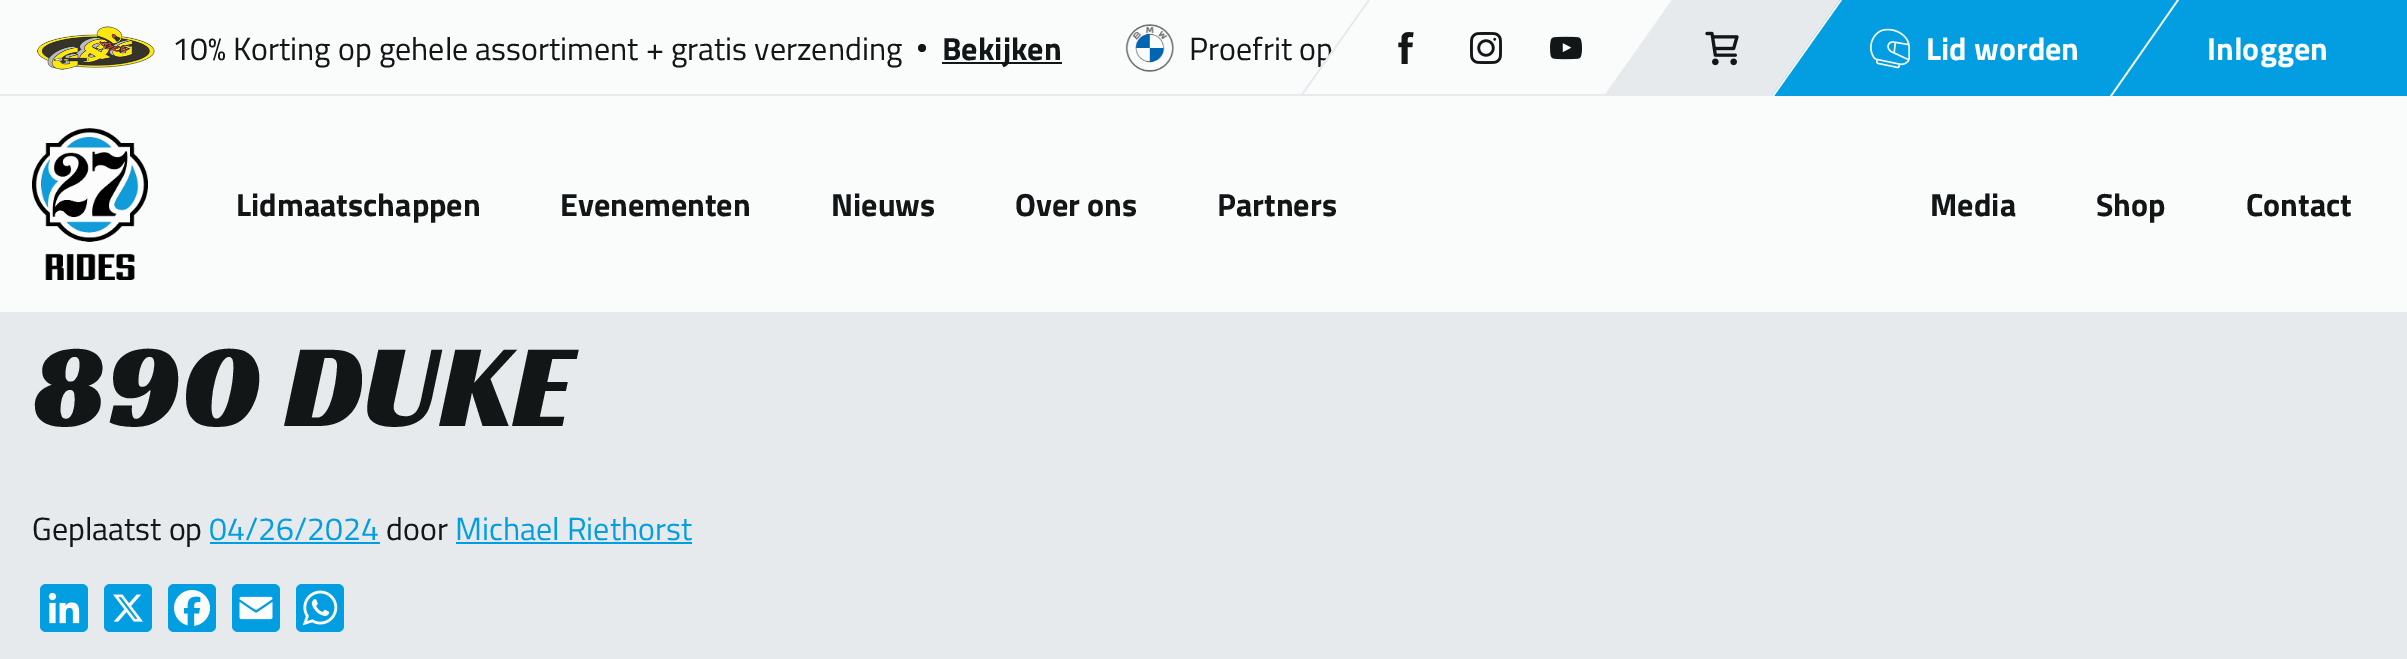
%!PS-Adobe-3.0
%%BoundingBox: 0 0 2407 659
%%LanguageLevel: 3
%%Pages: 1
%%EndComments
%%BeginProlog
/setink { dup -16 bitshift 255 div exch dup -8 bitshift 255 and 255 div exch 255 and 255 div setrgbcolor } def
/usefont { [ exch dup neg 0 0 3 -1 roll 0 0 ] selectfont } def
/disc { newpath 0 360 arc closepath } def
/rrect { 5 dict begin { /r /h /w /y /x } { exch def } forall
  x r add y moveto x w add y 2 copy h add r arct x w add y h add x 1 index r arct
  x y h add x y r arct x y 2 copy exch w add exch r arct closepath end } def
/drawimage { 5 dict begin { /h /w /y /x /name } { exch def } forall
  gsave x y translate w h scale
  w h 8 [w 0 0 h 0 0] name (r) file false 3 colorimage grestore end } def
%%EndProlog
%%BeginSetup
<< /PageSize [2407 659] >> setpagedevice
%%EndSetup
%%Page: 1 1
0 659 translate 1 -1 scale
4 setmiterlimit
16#E6EAEC setink
0 0 2407 659 rectfill
16#FAFBFB setink
0 0 2407 312 rectfill
(img1.raw) 37 26 118 44 drawimage
/TitilliumWeb-Regular 32 usefont
16#121617 setink
172 60 moveto (10% Korting op gehele assortiment + gratis verzending) show
922 48 4 disc fill
942 62 120 2 rectfill
/TitilliumWeb-Bold 32 usefont
942 60 moveto (Bekijken) show
(img2.raw) 1125 24 49 48 drawimage
/TitilliumWeb-Regular 32 usefont
1189 60 moveto (Proefrit op) show
16#FAFBFB setink
1368 0 moveto 1672 0 lineto 1604 96 lineto 1300 96 lineto closepath fill
16#E6EAEC setink
1368 0 moveto 1370 0 lineto 1302 96 lineto 1300 96 lineto closepath fill
(img3.raw) 1398 32 16 32 drawimage
(img4.raw) 1470 32 32 32 drawimage
(img5.raw) 1550 36 32 24 drawimage
0 94 1774 2 rectfill
1672 0 moveto 1840 0 lineto 1772 96 lineto 1604 96 lineto closepath fill
(img6.raw) 1705 31 34 35 drawimage
16#039EE1 setink
2110 0 297 96 rectfill
1840 0 moveto 2177 0 lineto 2110 96 lineto 1772 96 lineto closepath fill
16#FAFBFB setink
1840 0 moveto 1842 0 lineto 1774 96 lineto 1772 96 lineto closepath fill
(img7.raw) 1870 28 40 41 drawimage
/TitilliumWeb-Bold 32 usefont
1926 60 moveto (Lid worden) show
2177 0 moveto 2179 0 lineto 2112 96 lineto 2110 96 lineto closepath fill
2207 60 moveto (Inloggen) show
(img8.raw) 32 128 116 152 drawimage
16#121617 setink
[
    [(Lidmaatschappen) 236 216]
    [(Evenementen) 560 216]
    [(Nieuws) 831 216]
    [(Over ons) 1015 216]
    [(Partners) 1217 216]
    [(Media) 1930 216]
    [(Shop) 2096 216]
    [(Contact) 2246 216]
] { aload pop moveto show } forall
/RacingSansOne-Regular 120 usefont
32 426 moveto (890 DUKE) show
/TitilliumWeb-Regular 32 usefont
32 540 moveto (Geplaatst op) show
16#039EE1 setink
209 540 moveto (04/26/2024) show
210 542 170 2 rectfill
16#121617 setink
386 540 moveto (door) show
16#039EE1 setink
455 540 moveto (Michael Riethorst) show
456 542 236 2 rectfill
40 584 48 48 6 rrect fill
(img9.raw) 48 592 32 32 drawimage
104 584 48 48 6 rrect fill
(img10.raw) 113 594 30 28 drawimage
168 584 48 48 6 rrect fill
(img11.raw) 174 590 36 36 drawimage
232 584 48 48 6 rrect fill
(img12.raw) 239 596 34 24 drawimage
296 584 48 48 6 rrect fill
(img13.raw) 302 590 36 36 drawimage
showpage
%%EOF
